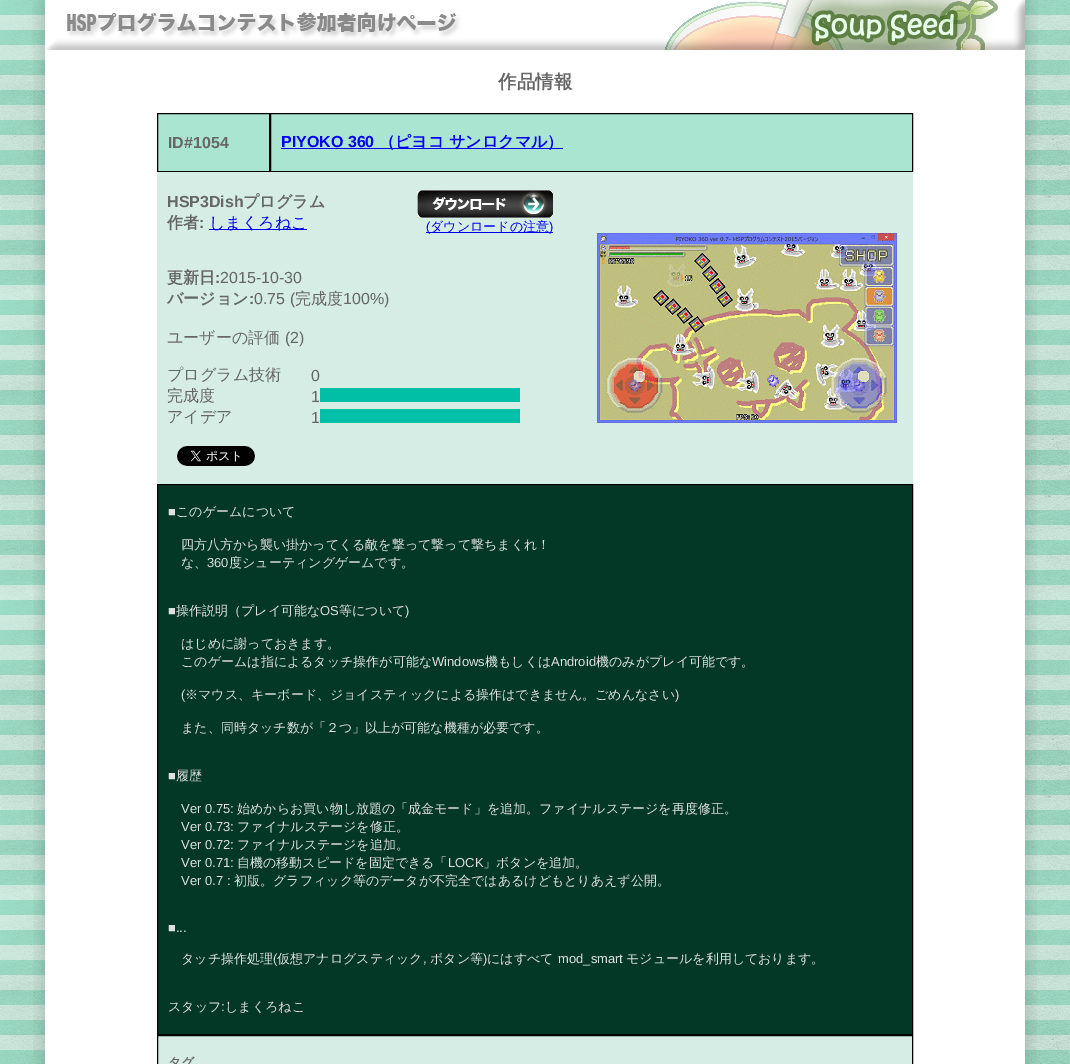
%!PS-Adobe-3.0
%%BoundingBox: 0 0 1070 1064
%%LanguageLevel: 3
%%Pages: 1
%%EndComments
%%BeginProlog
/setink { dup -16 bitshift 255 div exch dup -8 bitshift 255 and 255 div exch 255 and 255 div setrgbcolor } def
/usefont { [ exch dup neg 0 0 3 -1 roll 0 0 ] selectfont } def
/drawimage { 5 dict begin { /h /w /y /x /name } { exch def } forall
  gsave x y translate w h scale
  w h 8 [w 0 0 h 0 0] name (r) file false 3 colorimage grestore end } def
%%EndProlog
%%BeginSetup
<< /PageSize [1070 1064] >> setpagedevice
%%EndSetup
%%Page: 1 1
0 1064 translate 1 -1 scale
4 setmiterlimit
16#FFFFFF setink
0 0 1070 1064 rectfill
(img1.raw) 0 50 1070 1014 drawimage
(img2.raw) 0 0 1070 50 drawimage
(img3.raw) 32 0 1006 50 drawimage
(img4.raw) 33 50 1004 1014 drawimage
/WenQuanYiZenHei-Bold 18.5 usefont
16#666666 setink
498 88 moveto (作品情報) show
16#A9E5D0 setink
158 114 754 57 rectfill
16#000000 setink
157.5 113.5 112 58 rectstroke
/LiberationSans-Bold 16 usefont
16#666666 setink
168 148 moveto (ID#1054) show
16#000000 setink
270.5 113.5 642 58 rectstroke
16#0000EE setink
281 147 moveto (PIYOKO 360) show
281 148 282 1 rectfill
/WenQuanYiZenHei-Bold 16 usefont
379 147 moveto (（ピヨコ) show
449 147 moveto (サンロクマル）) show
16#D5EDE4 setink
157 172 756 312 rectfill
/LiberationSans-Bold 16 usefont
16#666666 setink
167 207 moveto (HSP3Dish) show
/WenQuanYiZenHei-Bold 16 usefont
243 207 moveto (プログラム) show
167 228 moveto (作者) show
/LiberationSans-Bold 16 usefont
199 228 moveto (:) show
16#0000EE setink
209 229 98 1 rectfill
/WenQuanYiZenHei-Medium 16 usefont
209 228 moveto (しまくろねこ) show
(img5.raw) 417 190 136 28 drawimage
426 232 127 1 rectfill
/LiberationSans-Regular 13 usefont
426 231 moveto (\() show
/WenQuanYiZenHei-Medium 13 usefont
430 231 moveto (ダウンロードの注意) show
/LiberationSans-Regular 13 usefont
549 231 moveto (\)) show
/WenQuanYiZenHei-Bold 16 usefont
16#666666 setink
167 283 moveto (更新日) show
/LiberationSans-Bold 16 usefont
215 283 moveto (:) show
/LiberationSans-Regular 16 usefont
220 283 moveto (2015-10-30) show
/WenQuanYiZenHei-Bold 16 usefont
167 304 moveto (バージョン) show
/LiberationSans-Bold 16 usefont
249 304 moveto (:) show
/LiberationSans-Regular 16 usefont
254 304 moveto (0.75 \() show
/WenQuanYiZenHei-Medium 16 usefont
295 304 moveto (完成度) show
/LiberationSans-Regular 16 usefont
343 304 moveto (100%\)) show
/WenQuanYiZenHei-Medium 16 usefont
167 343 moveto (ユーザーの評価) show
/LiberationSans-Regular 16 usefont
285 343 moveto (\(2\)) show
/WenQuanYiZenHei-Medium 16 usefont
167 380 moveto (プログラム技術) show
/LiberationSans-Regular 16 usefont
311 381 moveto (0) show
/WenQuanYiZenHei-Medium 16 usefont
167 401 moveto (完成度) show
/LiberationSans-Regular 16 usefont
311 402 moveto (1) show
16#00BFA7 setink
320 388 200 14 rectfill
/WenQuanYiZenHei-Medium 16 usefont
16#666666 setink
167 422 moveto (アイデア) show
/LiberationSans-Regular 16 usefont
311 423 moveto (1) show
16#00BFA7 setink
320 409 200 14 rectfill
(img6.raw) 177 446 78 20 drawimage
(img7.raw) 597 233 300 190 drawimage
16#043826 setink
157.5 484.5 moveto 912.5 484.5 lineto 912.5 1034.5 lineto 157.5 1034.5 lineto closepath gsave fill grestore
16#000000 setink
stroke
/LiberationSans-Regular 13 usefont
16#E0E0E0 setink
168 516 moveto (■) show
/WenQuanYiZenHei-Medium 13 usefont
[
    [(このゲームについて) 176 516]
    [(四方八方から襲い掛かってくる敵を撃って撃って撃ちまくれ！) 181 549]
    [(な、) 181 567]
] { aload pop moveto show } forall
/LiberationSans-Regular 13 usefont
207 567 moveto (360) show
/WenQuanYiZenHei-Medium 13 usefont
229 567 moveto (度シューティングゲームです。) show
/LiberationSans-Regular 13 usefont
168 615 moveto (■) show
/WenQuanYiZenHei-Medium 13 usefont
176 615 moveto (操作説明（プレイ可能な) show
/LiberationSans-Regular 13 usefont
320 615 moveto (OS) show
/WenQuanYiZenHei-Medium 13 usefont
339 615 moveto (等について) show
/LiberationSans-Regular 13 usefont
405 615 moveto (\)) show
/WenQuanYiZenHei-Medium 13 usefont
181 648 moveto (はじめに謝っておきます。) show
181 666 moveto (このゲームは指によるタッチ操作が可能な) show
/LiberationSans-Regular 13 usefont
432 666 moveto (Windows) show
/WenQuanYiZenHei-Medium 13 usefont
485 666 moveto (機もしくは) show
/LiberationSans-Regular 13 usefont
551 666 moveto (Android) show
/WenQuanYiZenHei-Medium 13 usefont
596 666 moveto (機のみがプレイ可能です。) show
/LiberationSans-Regular 13 usefont
181 699 moveto (\() show
/WenQuanYiZenHei-Medium 13 usefont
185 699 moveto (※マウス、キーボード、ジョイスティックによる操作はできません。ごめんなさい) show
/LiberationSans-Regular 13 usefont
675 699 moveto (\)) show
/WenQuanYiZenHei-Medium 13 usefont
181 732 moveto (また、同時タッチ数が「２つ」以上が可能な機種が必要です。) show
/LiberationSans-Regular 13 usefont
168 780 moveto (■) show
/WenQuanYiZenHei-Medium 13 usefont
176 780 moveto (履歴) show
/LiberationSans-Regular 13 usefont
181 813 moveto (Ver 0.75:) show
/WenQuanYiZenHei-Medium 13 usefont
237 813 moveto (始めからお買い物し放題の「成金モード」を追加。ファイナルステージを再度修正。) show
/LiberationSans-Regular 13 usefont
181 831 moveto (Ver 0.73:) show
/WenQuanYiZenHei-Medium 13 usefont
237 831 moveto (ファイナルステージを修正。) show
/LiberationSans-Regular 13 usefont
181 849 moveto (Ver 0.72:) show
/WenQuanYiZenHei-Medium 13 usefont
237 849 moveto (ファイナルステージを追加。) show
/LiberationSans-Regular 13 usefont
181 867 moveto (Ver 0.71:) show
/WenQuanYiZenHei-Medium 13 usefont
237 867 moveto (自機の移動スピードを固定できる「) show
/LiberationSans-Regular 13 usefont
448 867 moveto (LOCK) show
/WenQuanYiZenHei-Medium 13 usefont
483 867 moveto (」ボタンを追加。) show
/LiberationSans-Regular 13 usefont
181 885 moveto (Ver 0.7 :) show
/WenQuanYiZenHei-Medium 13 usefont
234 885 moveto (初版。グラフィック等のデータが不完全ではあるけどもとりあえず公開。) show
/LiberationSans-Regular 13 usefont
168 932 moveto (■...) show
/WenQuanYiZenHei-Medium 13 usefont
181 963 moveto (タッチ操作処理) show
/LiberationSans-Regular 13 usefont
273 963 moveto (\() show
/WenQuanYiZenHei-Medium 13 usefont
277 963 moveto (仮想アナログスティック) show
/LiberationSans-Regular 13 usefont
423 963 moveto (,) show
/WenQuanYiZenHei-Medium 13 usefont
430 963 moveto (ボタン等) show
/LiberationSans-Regular 13 usefont
483 963 moveto (\)) show
/WenQuanYiZenHei-Medium 13 usefont
487 963 moveto (にはすべて) show
/LiberationSans-Regular 13 usefont
558 963 moveto (mod_smart) show
/WenQuanYiZenHei-Medium 13 usefont
626 963 moveto (モジュールを利用しております。) show
168 1011 moveto (スタッフ しまくろねこ) show
/LiberationSans-Regular 13 usefont
221 1011 moveto (:) show
16#D5EDE4 setink
157.5 1035.5 moveto 912.5 1035.5 lineto 912.5 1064.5 lineto 157.5 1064.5 lineto closepath gsave fill grestore
16#000000 setink
stroke
/WenQuanYiZenHei-Bold 13 usefont
16#666666 setink
168 1067 moveto (タグ) show
showpage
%%EOF
